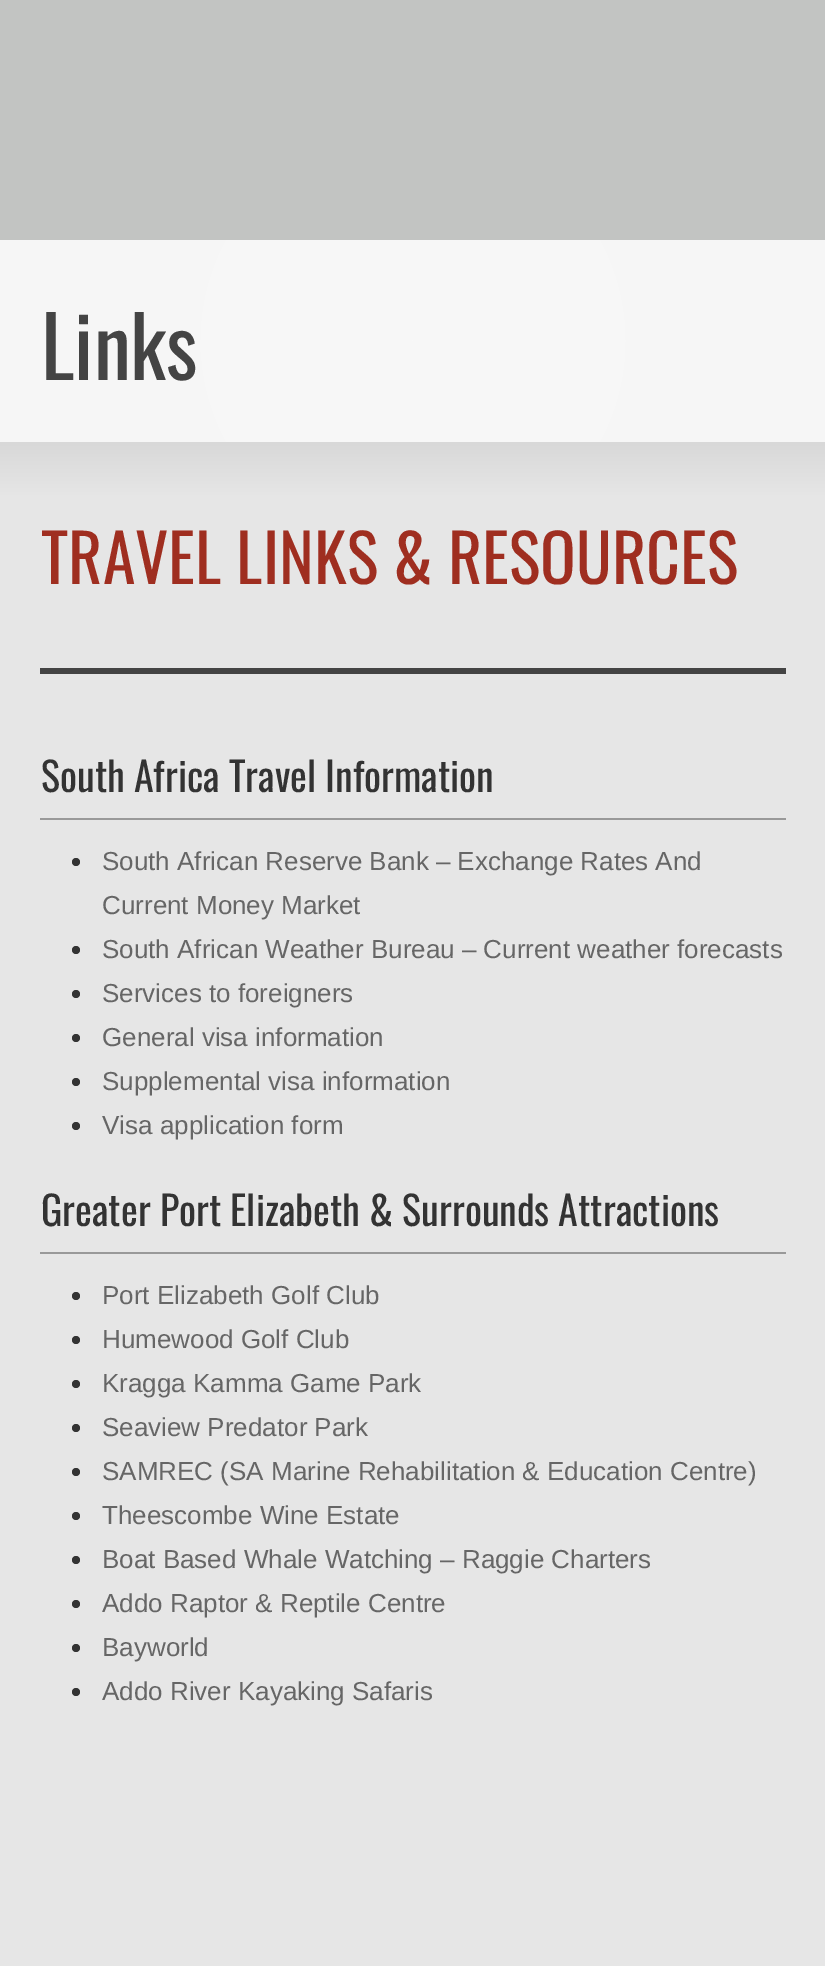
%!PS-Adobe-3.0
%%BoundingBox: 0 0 825 1966
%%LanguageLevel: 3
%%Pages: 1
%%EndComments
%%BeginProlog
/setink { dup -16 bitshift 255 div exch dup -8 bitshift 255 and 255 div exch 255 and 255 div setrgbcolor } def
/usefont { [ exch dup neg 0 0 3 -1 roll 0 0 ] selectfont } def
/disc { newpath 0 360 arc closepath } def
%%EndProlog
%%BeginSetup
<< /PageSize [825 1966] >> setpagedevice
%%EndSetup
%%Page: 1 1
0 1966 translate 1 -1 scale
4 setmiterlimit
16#FFFFFF setink
0 0 825 1966 rectfill
16#C2C4C2 setink
0 0 825 240 rectfill
gsave 0 240 moveto 825 240 lineto 825 442 lineto 0 442 lineto closepath clip newpath 413 341 translate 425 425 scale
<< /ShadingType 3 /ColorSpace /DeviceRGB /Coords [0 0 0 0 0 1] /Extend [true true] /Function << /FunctionType 2 /Domain [0 1] /C0 [0.973 0.973 0.973] /C1 [0.965 0.965 0.965] /N 1 >> >> shfill grestore
/Oswald-Regular 84 usefont
16#444444 setink
41 380 moveto (Links) show
16#E6E6E6 setink
0 496 825 1470 rectfill
gsave 0 442 moveto 825 442 lineto 825 496 lineto 0 496 lineto closepath clip newpath
<< /ShadingType 2 /ColorSpace /DeviceRGB /Coords [413 442 413 496] /Extend [true true] /Function << /FunctionType 2 /Domain [0 1] /C0 [0.847 0.847 0.847] /C1 [0.902 0.902 0.902] /N 1 >> >> shfill grestore
/Oswald-Regular 66 usefont
16#9F2E20 setink
41 584 moveto (TRAVEL LINKS & RESOURCES) show
16#444444 setink
40 668 746 6 rectfill
/Oswald-Regular 40 usefont
16#333333 setink
41 792 moveto (South Africa Travel Information) show
16#999999 setink
40 818 746 2 rectfill
16#333333 setink
76 862 4 disc fill
/LiberationSans-Regular 26 usefont
16#666666 setink
102 870 moveto (South African Reserve Bank – Exchange Rates And) show
102 914 moveto (Current Money Market) show
16#333333 setink
76 950 4 disc fill
16#666666 setink
102 958 moveto (South African Weather Bureau – Current weather forecasts) show
16#333333 setink
76 994 4 disc fill
16#666666 setink
102 1002 moveto (Services to foreigners) show
16#333333 setink
76 1038 4 disc fill
16#666666 setink
102 1046 moveto (General visa information) show
16#333333 setink
76 1082 4 disc fill
16#666666 setink
102 1090 moveto (Supplemental visa information) show
16#333333 setink
76 1126 4 disc fill
16#666666 setink
102 1134 moveto (Visa application form) show
/Oswald-Regular 40 usefont
16#333333 setink
41 1226 moveto (Greater Port Elizabeth & Surrounds Attractions) show
16#999999 setink
40 1252 746 2 rectfill
16#333333 setink
76 1296 4 disc fill
/LiberationSans-Regular 26 usefont
16#666666 setink
102 1304 moveto (Port Elizabeth Golf Club) show
16#333333 setink
76 1340 4 disc fill
16#666666 setink
102 1348 moveto (Humewood Golf Club) show
16#333333 setink
76 1384 4 disc fill
16#666666 setink
102 1392 moveto (Kragga Kamma Game Park) show
16#333333 setink
76 1428 4 disc fill
16#666666 setink
102 1436 moveto (Seaview Predator Park) show
16#333333 setink
76 1472 4 disc fill
16#666666 setink
102 1480 moveto (SAMREC \(SA Marine Rehabilitation & Education Centre\)) show
16#333333 setink
76 1516 4 disc fill
16#666666 setink
102 1524 moveto (Theescombe Wine Estate) show
16#333333 setink
76 1560 4 disc fill
16#666666 setink
102 1568 moveto (Boat Based Whale Watching – Raggie Charters) show
16#333333 setink
76 1604 4 disc fill
16#666666 setink
102 1612 moveto (Addo Raptor & Reptile Centre) show
16#333333 setink
76 1648 4 disc fill
16#666666 setink
102 1656 moveto (Bayworld) show
16#333333 setink
76 1692 4 disc fill
16#666666 setink
102 1700 moveto (Addo River Kayaking Safaris) show
showpage
%%EOF
